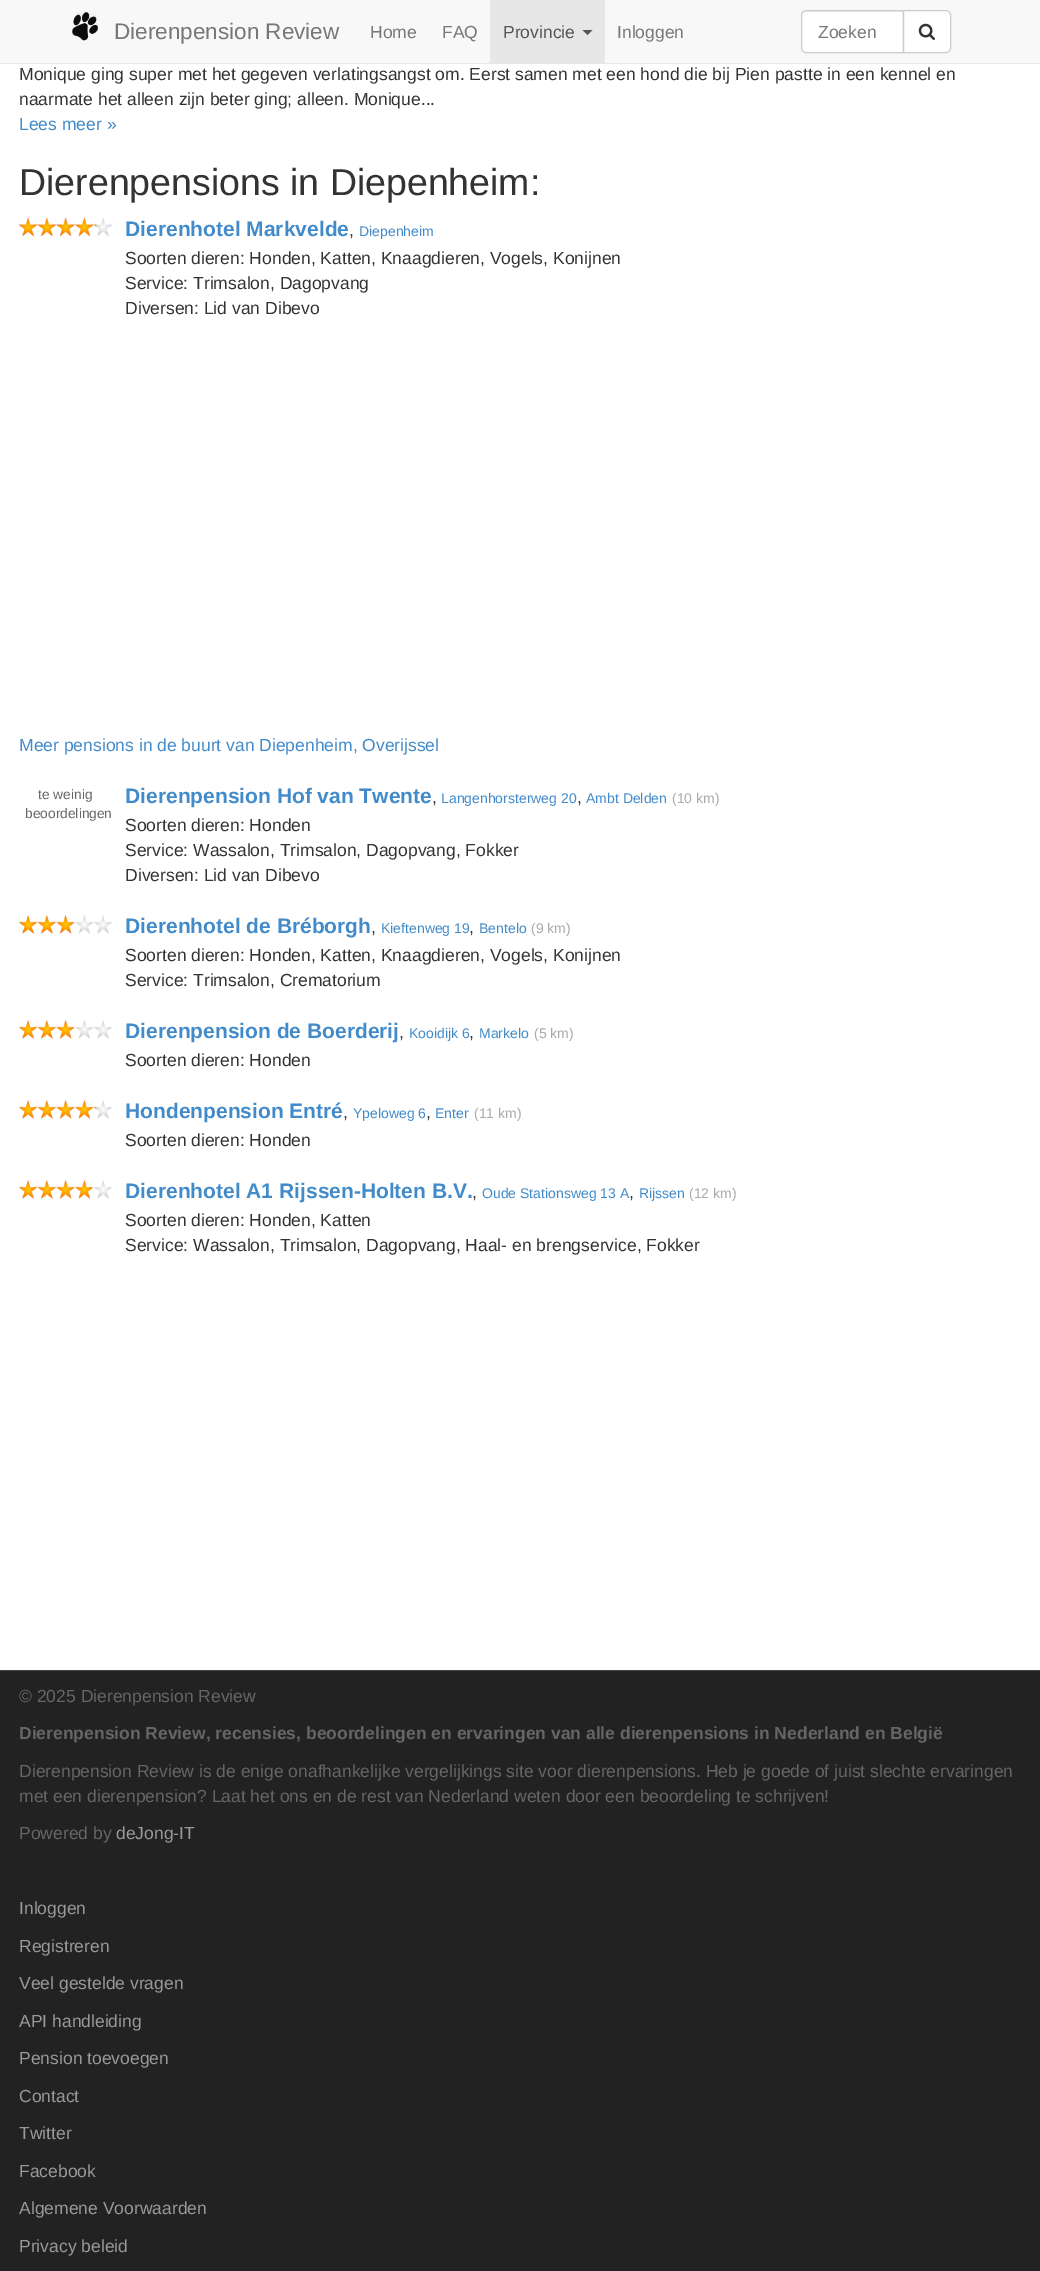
%!PS-Adobe-3.0
%%BoundingBox: 0 0 1040 2271
%%LanguageLevel: 3
%%Pages: 1
%%EndComments
%%BeginProlog
/setink { dup -16 bitshift 255 div exch dup -8 bitshift 255 and 255 div exch 255 and 255 div setrgbcolor } def
/usefont { [ exch dup neg 0 0 3 -1 roll 0 0 ] selectfont } def
/drawimage { 5 dict begin { /h /w /y /x /name } { exch def } forall
  gsave x y translate w h scale
  w h 8 [w 0 0 h 0 0] name (r) file false 3 colorimage grestore end } def
%%EndProlog
%%BeginSetup
<< /PageSize [1040 2271] >> setpagedevice
%%EndSetup
%%Page: 1 1
0 2271 translate 1 -1 scale
4 setmiterlimit
16#FFFFFF setink
0 0 1040 2271 rectfill
16#F8F8F8 setink
0 0 1040 63 rectfill
16#E7E7E7 setink
0 63 1040 1 rectfill
(img1.raw) 72 11 27 30 drawimage
/LiberationSans-Regular 22.5 usefont
16#777777 setink
114 39 moveto (Dierenpension Review) show
/LiberationSans-Regular 17.5 usefont
370 38 moveto (Home) show
442 38 moveto (FAQ) show
16#E7E7E7 setink
490 0 115 63 rectfill
16#555555 setink
503 38 moveto (Provincie) show
582.5 30 moveto 592.5 30 lineto 587.5 35 lineto closepath fill
16#777777 setink
617 38 moveto (Inloggen) show
16#FFFFFF setink
806 10 moveto 904 10 lineto 904 53 lineto 806 53 lineto 803 53 801 51 801 48 curveto 801 15 lineto 801 12 803 10 806 10 curveto closepath fill
16#ECECEC setink
806 12 moveto 902 12 lineto 902 51 lineto 903 51 lineto 903 11 lineto 807 11 lineto 806 11 804 12 804 13 curveto closepath fill
16#CCCCCC setink
806 10.5 moveto 903.5 10.5 lineto 903.5 52.5 lineto 806 52.5 lineto 803.5 52.5 801.5 50.5 801.5 48 curveto 801.5 15 lineto 801.5 12.5 803.5 10.5 806 10.5 curveto closepath stroke
16#777777 setink
818 38 moveto (Zoeken) show
16#FFFFFF setink
903.5 10.5 moveto 946 10.5 lineto 948.5 10.5 950.5 12.5 950.5 15 curveto 950.5 48 lineto 950.5 50.5 948.5 52.5 946 52.5 curveto 903.5 52.5 lineto closepath gsave fill grestore
16#CCCCCC setink
stroke
(img2.raw) 918 23 17 17 drawimage
16#333333 setink
19 80 moveto (Monique ging super met het gegeven verlatingsangst om. Eerst samen met een hond die bij Pien pastte in een kennel en) show
19 105 moveto (naarmate het alleen zijn beter ging; alleen. Monique...) show
16#428BCA setink
19 130 moveto (Lees meer ») show
/LiberationSans-Regular 37.5 usefont
16#333333 setink
19 195 moveto (Dierenpensions in Diepenheim:) show
(img4.raw) 19 217 94 20 drawimage
(img3.raw) 18 217 79 20 drawimage
/LiberationSans-Bold 21 usefont
16#428BCA setink
125 236 moveto (Dierenhotel Markvelde) show
/LiberationSans-Regular 17.5 usefont
16#333333 setink
349 236 moveto (,) show
/LiberationSans-Regular 14 usefont
16#428BCA setink
359 236 moveto (Diepenheim) show
/LiberationSans-Regular 17.5 usefont
16#333333 setink
[
    [(Soorten dieren: Honden, Katten, Knaagdieren, Vogels, Konijnen) 125 264]
    [(Service: Trimsalon, Dagopvang) 125 289]
    [(Diversen: Lid van Dibevo) 125 314]
] { aload pop moveto show } forall
16#428BCA setink
19 751 moveto (Meer pensions in de buurt van Diepenheim, Overijssel) show
/LiberationSans-Regular 13.75 usefont
16#666666 setink
38 799 moveto (te weinig) show
25 818 moveto (beoordelingen) show
/LiberationSans-Bold 21 usefont
16#428BCA setink
125 803 moveto (Dierenpension Hof van Twente) show
/LiberationSans-Regular 17.5 usefont
16#333333 setink
432 803 moveto (,) show
/LiberationSans-Regular 14 usefont
16#428BCA setink
441 803 moveto (Langenhorsterweg 20) show
/LiberationSans-Regular 17.5 usefont
16#333333 setink
577 803 moveto (,) show
/LiberationSans-Regular 14 usefont
16#428BCA setink
586 803 moveto (Ambt Delden) show
16#AAAAAA setink
672 803 moveto (\(10 km\)) show
/LiberationSans-Regular 17.5 usefont
16#333333 setink
[
    [(Soorten dieren: Honden) 125 831]
    [(Service: Wassalon, Trimsalon, Dagopvang, Fokker) 125 856]
    [(Diversen: Lid van Dibevo) 125 881]
] { aload pop moveto show } forall
(img6.raw) 19 915 94 19 drawimage
(img5.raw) 18 915 56 19 drawimage
/LiberationSans-Bold 21 usefont
16#428BCA setink
125 933 moveto (Dierenhotel de Bréborgh) show
/LiberationSans-Regular 17.5 usefont
16#333333 setink
371 933 moveto (,) show
/LiberationSans-Regular 14 usefont
16#428BCA setink
381 933 moveto (Kieftenweg 19) show
/LiberationSans-Regular 17.5 usefont
16#333333 setink
469 933 moveto (,) show
/LiberationSans-Regular 14 usefont
16#428BCA setink
479 933 moveto (Bentelo) show
16#AAAAAA setink
531 933 moveto (\(9 km\)) show
/LiberationSans-Regular 17.5 usefont
16#333333 setink
125 961 moveto (Soorten dieren: Honden, Katten, Knaagdieren, Vogels, Konijnen) show
125 986 moveto (Service: Trimsalon, Crematorium) show
(img8.raw) 19 1020 94 19 drawimage
(img7.raw) 18 1020 56 19 drawimage
/LiberationSans-Bold 21 usefont
16#428BCA setink
125 1038 moveto (Dierenpension de Boerderij) show
/LiberationSans-Regular 17.5 usefont
16#333333 setink
399 1038 moveto (,) show
/LiberationSans-Regular 14 usefont
16#428BCA setink
409 1038 moveto (Kooidijk 6) show
/LiberationSans-Regular 17.5 usefont
16#333333 setink
469 1038 moveto (,) show
/LiberationSans-Regular 14 usefont
16#428BCA setink
479 1038 moveto (Markelo) show
16#AAAAAA setink
534 1038 moveto (\(5 km\)) show
/LiberationSans-Regular 17.5 usefont
16#333333 setink
125 1066 moveto (Soorten dieren: Honden) show
(img10.raw) 19 1100 94 19 drawimage
(img9.raw) 18 1100 79 19 drawimage
/LiberationSans-Bold 21 usefont
16#428BCA setink
125 1118 moveto (Hondenpension Entré) show
/LiberationSans-Regular 17.5 usefont
16#333333 setink
343 1118 moveto (,) show
/LiberationSans-Regular 14 usefont
16#428BCA setink
353 1118 moveto (Ypeloweg 6) show
/LiberationSans-Regular 17.5 usefont
16#333333 setink
426 1118 moveto (,) show
/LiberationSans-Regular 14 usefont
16#428BCA setink
435 1118 moveto (Enter) show
16#AAAAAA setink
474 1118 moveto (\(11 km\)) show
/LiberationSans-Regular 17.5 usefont
16#333333 setink
125 1146 moveto (Soorten dieren: Honden) show
(img12.raw) 19 1180 94 19 drawimage
(img11.raw) 18 1180 75 19 drawimage
/LiberationSans-Bold 21 usefont
16#428BCA setink
125 1198 moveto (Dierenhotel A1 Rijssen-Holten B.V.) show
/LiberationSans-Regular 17.5 usefont
16#333333 setink
472 1198 moveto (,) show
/LiberationSans-Regular 14 usefont
16#428BCA setink
482 1198 moveto (Oude Stationsweg 13 A) show
/LiberationSans-Regular 17.5 usefont
16#333333 setink
629 1198 moveto (,) show
/LiberationSans-Regular 14 usefont
16#428BCA setink
639 1198 moveto (Rijssen) show
16#AAAAAA setink
689 1198 moveto (\(12 km\)) show
/LiberationSans-Regular 17.5 usefont
16#333333 setink
125 1226 moveto (Soorten dieren: Honden, Katten) show
125 1251 moveto (Service: Wassalon, Trimsalon, Dagopvang, Haal- en brengservice, Fokker) show
16#222222 setink
0 1671 1040 600 rectfill
16#444444 setink
0 1670 1040 1 rectfill
16#666666 setink
19 1702 moveto (© 2025 Dierenpension Review) show
/LiberationSans-Bold 17.5 usefont
19 1739 moveto (Dierenpension Review, recensies, beoordelingen en ervaringen van alle dierenpensions in Nederland en België) show
/LiberationSans-Regular 17.5 usefont
[
    [(Dierenpension Review is de enige onafhankelijke vergelijkings site voor dierenpensions. Heb je goede of juist slechte ervaringen) 19 1777]
    [(met een dierenpension? Laat het ons en de rest van Nederland weten door een beoordeling te schrijven!) 19 1802]
    [(Powered by) 19 1839]
] { aload pop moveto show } forall
16#999999 setink
[
    [(deJong-IT) 116 1839]
    [(Inloggen) 19 1914]
    [(Registreren) 19 1952]
    [(Veel gestelde vragen) 19 1989]
    [(API handleiding) 19 2027]
    [(Pension toevoegen) 19 2064]
    [(Contact) 19 2102]
    [(Twitter) 19 2139]
    [(Facebook) 19 2177]
    [(Algemene Voorwaarden) 19 2214]
    [(Privacy beleid) 19 2252]
] { aload pop moveto show } forall
showpage
%%EOF
